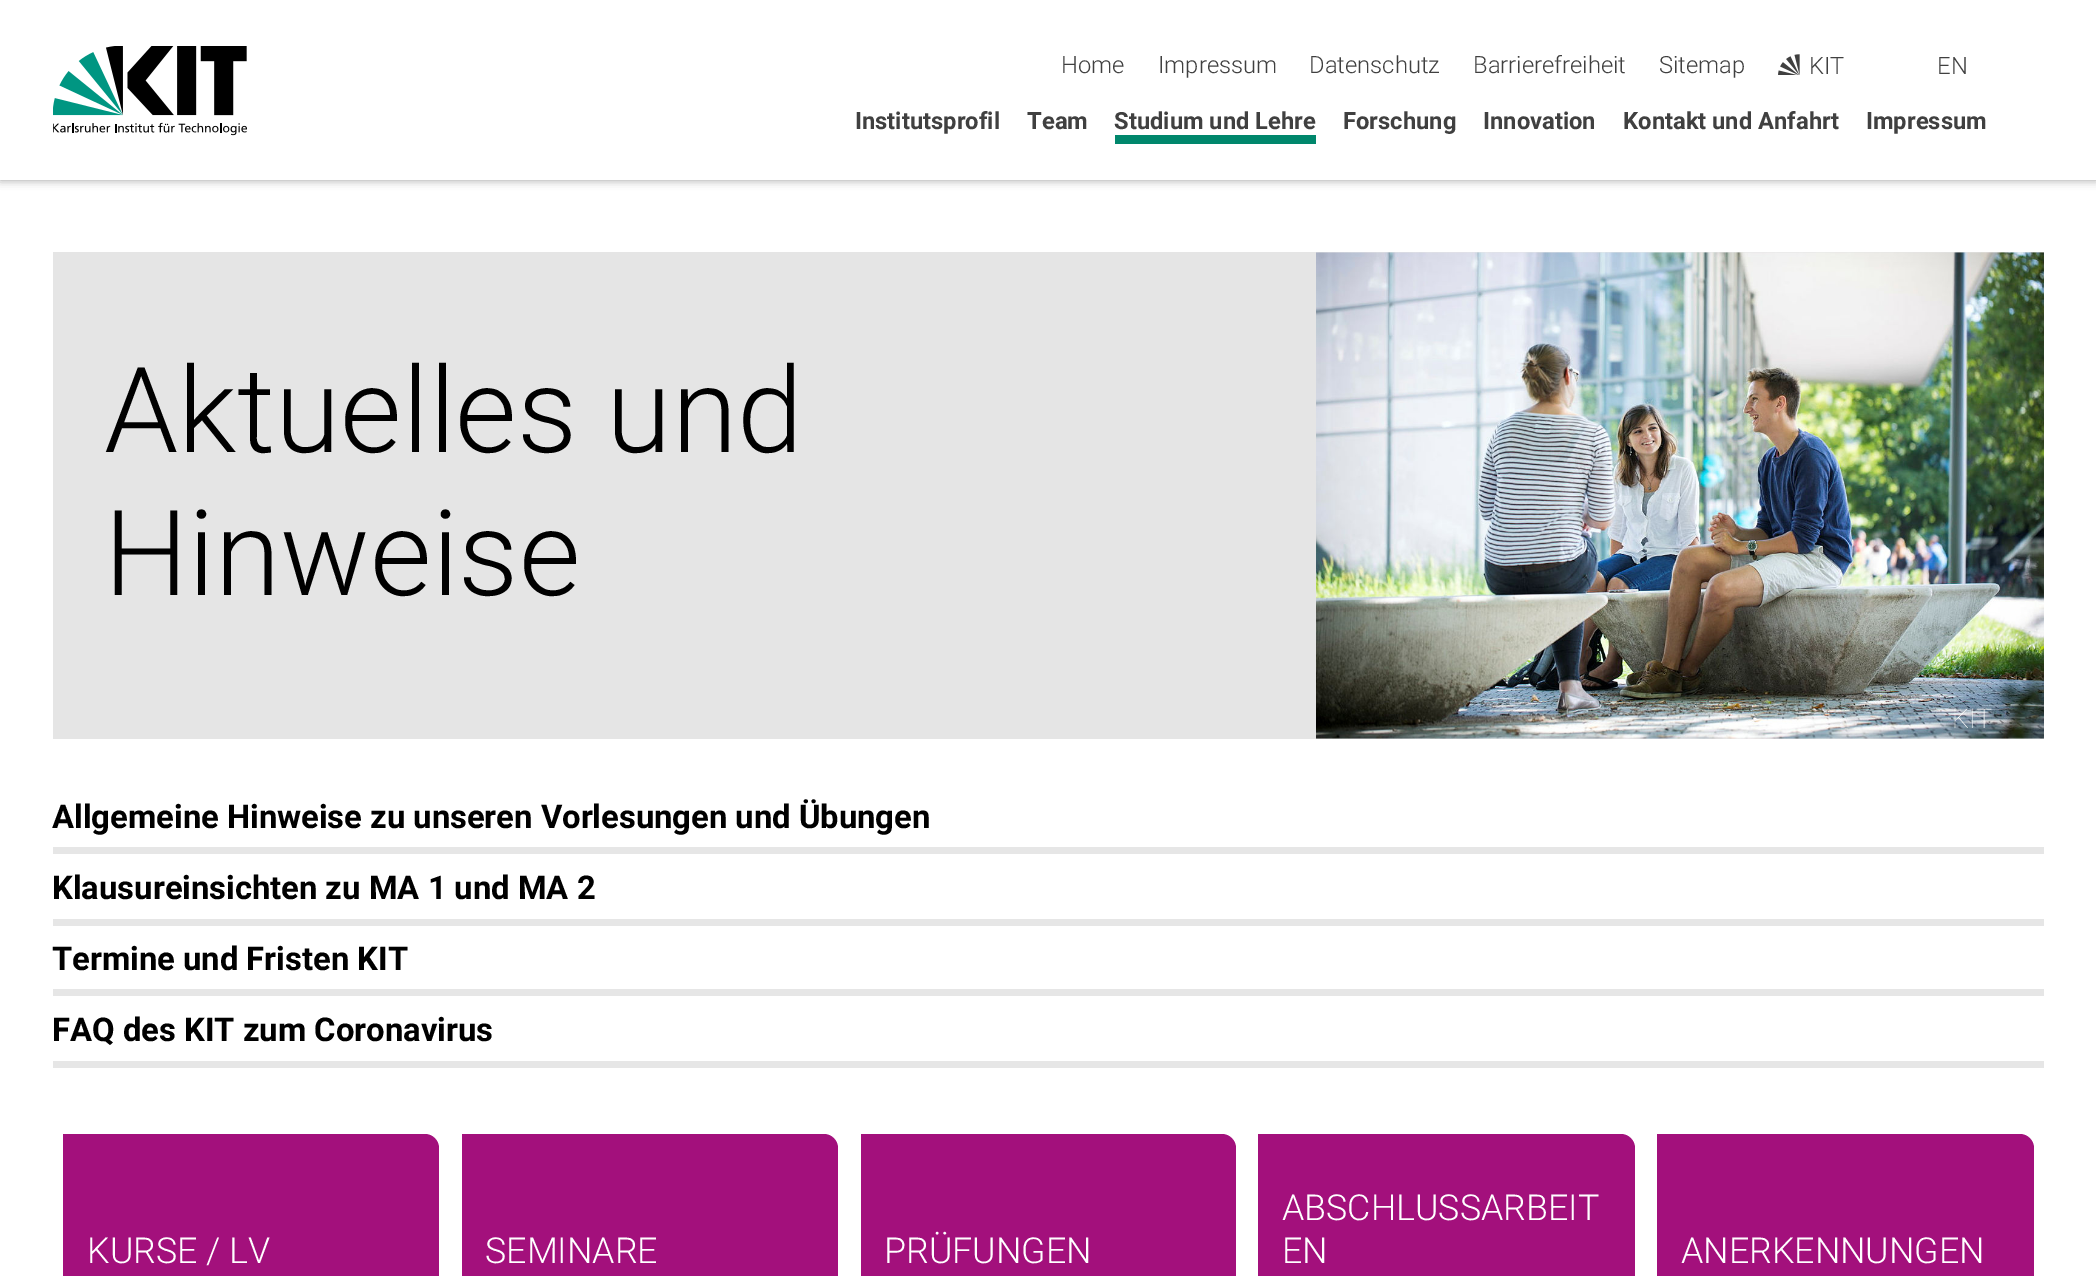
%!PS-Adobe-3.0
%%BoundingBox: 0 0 2096 1276
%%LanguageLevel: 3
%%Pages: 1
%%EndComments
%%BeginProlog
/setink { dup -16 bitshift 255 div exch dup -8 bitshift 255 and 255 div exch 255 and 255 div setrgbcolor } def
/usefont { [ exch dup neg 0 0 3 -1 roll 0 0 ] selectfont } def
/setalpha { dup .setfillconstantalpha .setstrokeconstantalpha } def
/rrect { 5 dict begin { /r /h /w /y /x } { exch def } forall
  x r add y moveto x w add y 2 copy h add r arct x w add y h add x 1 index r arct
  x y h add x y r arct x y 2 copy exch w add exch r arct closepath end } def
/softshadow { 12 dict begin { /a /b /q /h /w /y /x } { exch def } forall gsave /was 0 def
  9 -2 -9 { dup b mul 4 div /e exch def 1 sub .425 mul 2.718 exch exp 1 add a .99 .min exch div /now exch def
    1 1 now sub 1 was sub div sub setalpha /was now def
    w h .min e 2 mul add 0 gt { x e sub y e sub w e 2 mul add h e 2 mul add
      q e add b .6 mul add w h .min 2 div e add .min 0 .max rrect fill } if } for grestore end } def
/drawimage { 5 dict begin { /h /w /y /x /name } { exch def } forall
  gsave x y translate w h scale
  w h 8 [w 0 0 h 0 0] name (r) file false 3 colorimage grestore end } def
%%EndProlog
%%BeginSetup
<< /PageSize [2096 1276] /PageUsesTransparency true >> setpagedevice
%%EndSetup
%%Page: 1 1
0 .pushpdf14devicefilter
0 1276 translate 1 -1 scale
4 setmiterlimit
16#FFFFFF setink
0 0 2096 1276 rectfill
16#404040 setink
0 0 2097 180 0 4.5 0.5 softshadow
16#FFFFFF setink
0 0 2096 180 rectfill
(img1.raw) 53 46 194 90 drawimage
/Roboto-Light 23.75 usefont
16#404040 setink
[
    [(Home) 1061 73]
    [(Impressum) 1158 73]
    [(Datenschutz) 1309 73]
    [(Barrierefreiheit) 1473 73]
    [(Sitemap) 1659 73]
] { aload pop moveto show } forall
(img2.raw) 1778 54 22 21 drawimage
1809 74 moveto (KIT) show
1937 74 moveto (EN) show
/Roboto-Bold 23.75 usefont
[
    [(Institutsprofil) 855 129]
    [(Team) 1027 129]
    [(Studium und Lehre) 1114 129]
] { aload pop moveto show } forall
16#00876C setink
1115 135 201 9 rectfill
16#404040 setink
[
    [(Forschung) 1343 129]
    [(Innovation) 1483 129]
    [(Kontakt und Anfahrt) 1623 129]
    [(Impressum) 1866 129]
] { aload pop moveto show } forall
16#E5E5E5 setink
53 252 1991 487 rectfill
/Roboto-Light 119 usefont
16#000000 setink
104 452 moveto (Aktuelles und) show
104 595 moveto (Hinweise) show
(img3.raw) 1316 252 728 487 drawimage
/Roboto-Thin 27 usefont
16#FFFFFF setink
1952 728 moveto (KIT) show
16#E6E6E6 setink
53 847 1991 7 rectfill
/Roboto-Bold 32.75 usefont
16#000000 setink
52 828 moveto (Allgemeine Hinweise zu unseren Vorlesungen und Übungen) show
16#E6E6E6 setink
53 919 1991 7 rectfill
16#000000 setink
52 899 moveto (Klausureinsichten zu MA 1 und MA 2) show
16#E6E6E6 setink
53 989 1991 7 rectfill
16#000000 setink
52 970 moveto (Termine und Fristen KIT) show
16#E6E6E6 setink
53 1061 1991 7 rectfill
16#000000 setink
52 1041 moveto (FAQ des KIT zum Coronavirus) show
16#A3107C setink
63 1134 moveto 425 1134 lineto 432.5 1134 439 1140.5 439 1148 curveto 439 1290 lineto 77 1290 lineto 69.5 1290 63 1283.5 63 1276 curveto closepath fill
/Roboto-Light 35.75 usefont
16#FFFFFF setink
87 1263 moveto (KURSE / LV) show
16#A3107C setink
462 1134 moveto 824 1134 lineto 831.5 1134 838 1140.5 838 1148 curveto 838 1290 lineto 476 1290 lineto 468.5 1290 462 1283.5 462 1276 curveto closepath fill
16#FFFFFF setink
485 1263 moveto (SEMINARE) show
16#A3107C setink
861 1134 moveto 1222 1134 lineto 1229.5 1134 1236 1140.5 1236 1148 curveto 1236 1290 lineto 875 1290 lineto 867.5 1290 861 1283.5 861 1276 curveto closepath fill
16#FFFFFF setink
884 1263 moveto (PRÜFUNGEN) show
16#A3107C setink
1258 1134 moveto 1621 1134 lineto 1628.5 1134 1635 1140.5 1635 1148 curveto 1635 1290 lineto 1272 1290 lineto 1264.5 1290 1258 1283.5 1258 1276 curveto closepath fill
16#FFFFFF setink
1282 1220 moveto (ABSCHLUSSARBEIT) show
1282 1263 moveto (EN) show
16#A3107C setink
1657 1134 moveto 2020 1134 lineto 2027.5 1134 2034 1140.5 2034 1148 curveto 2034 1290 lineto 1671 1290 lineto 1663.5 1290 1657 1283.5 1657 1276 curveto closepath fill
16#FFFFFF setink
1681 1263 moveto (ANERKENNUNGEN) show
.poppdf14devicefilter showpage
%%EOF
